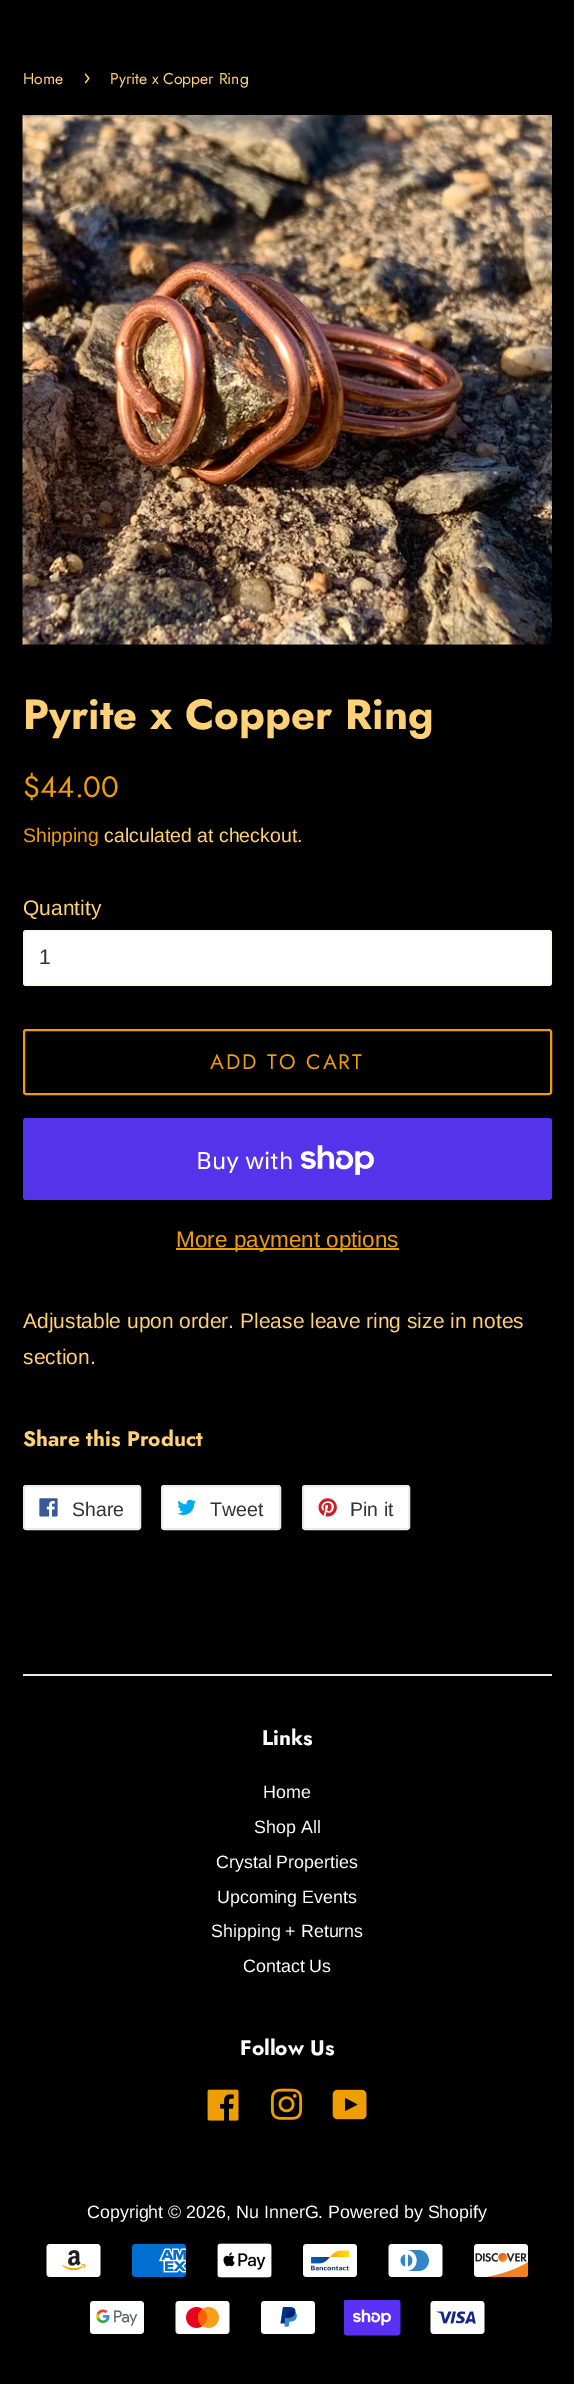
%!PS-Adobe-3.0
%%BoundingBox: 0 0 574 2384
%%LanguageLevel: 3
%%Pages: 1
%%EndComments
%%BeginProlog
/setink { dup -16 bitshift 255 div exch dup -8 bitshift 255 and 255 div exch 255 and 255 div setrgbcolor } def
/usefont { [ exch dup neg 0 0 3 -1 roll 0 0 ] selectfont } def
/setalpha { dup .setfillconstantalpha .setstrokeconstantalpha } def
/rrect { 5 dict begin { /r /h /w /y /x } { exch def } forall
  x r add y moveto x w add y 2 copy h add r arct x w add y h add x 1 index r arct
  x y h add x y r arct x y 2 copy exch w add exch r arct closepath end } def
/drawimage { 5 dict begin { /h /w /y /x /name } { exch def } forall
  gsave x y translate w h scale
  w h 8 [w 0 0 h 0 0] name (r) file false 3 colorimage grestore end } def
%%EndProlog
%%BeginSetup
<< /PageSize [574 2384] /PageUsesTransparency true >> setpagedevice
%%EndSetup
%%Page: 1 1
0 .pushpdf14devicefilter
0 2384 translate 1 -1 scale
4 setmiterlimit
16#000000 setink
0 0 574 2384 rectfill
/Jost-Regular 15.75 usefont
16#FFD177 setink
23 84 moveto (Home) show
/Jost-Regular 22 usefont
83 84 moveto (›) show
/Jost-Regular 15.75 usefont
110 84 moveto (Pyrite x Copper Ring) show
(img1.raw) 22 115 530 530 drawimage
/Jost-Bold 42 usefont
23 729 moveto (Pyrite x Copper Ring) show
/Jost-Regular 29.5 usefont
16#EE9E00 setink
23 797 moveto ($44.00) show
/LiberationSans-Regular 19.5 usefont
23 842 moveto (Shipping) show
16#FFD177 setink
104 842 moveto (calculated at checkout.) show
/LiberationSans-Regular 21 usefont
23 915 moveto (Quantity) show
16#FFFFFF setink
23 930 529 56 3 rrect fill
0.15 setalpha
16#FFD177 setink
2 setlinewidth
24 931 527 54 2 rrect stroke
1 setalpha
16#333333 setink
39 964 moveto (1) show
16#EE9E00 setink
24 1030 527 64 2 rrect stroke
/Jost-Regular 21 usefont
210 1069 moveto 2.1 0 (ADD TO CART) ashow
16#5433EB setink
23 1118 529 82 3 rrect fill
/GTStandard-Regular 24 usefont
16#FFFFFF setink
196 1169 moveto (Buy with) show
(img2.raw) 300 1145 74 30 drawimage
16#EE9E00 setink
176 1248 223 2 rectfill
/LiberationSans-Regular 22.5 usefont
176 1247 moveto (More payment options) show
/LiberationSans-Regular 21 usefont
16#FFD177 setink
23 1328 moveto (Adjustable upon order. Please leave ring size in notes) show
23 1364 moveto (section.) show
/Jost-Bold 21 usefont
23 1446 moveto (Share this Product) show
16#FFFFFF setink
24 1486 116 43 2 rrect gsave fill grestore
16#ECECEC setink
stroke
(img3.raw) 39 1498 19 19 drawimage
/LiberationSans-Regular 19.5 usefont
16#333333 setink
72 1516 moveto (Share) show
16#FFFFFF setink
162 1486 118 43 2 rrect gsave fill grestore
16#ECECEC setink
stroke
(img4.raw) 177 1499 19 16 drawimage
16#333333 setink
210 1516 moveto (Tweet) show
16#FFFFFF setink
303 1486 106 43 2 rrect gsave fill grestore
16#ECECEC setink
stroke
(img5.raw) 318 1498 19 19 drawimage
16#333333 setink
350 1516 moveto (Pin it) show
16#EBEBEB setink
23 1674 529 2 rectfill
/Jost-Bold 21 usefont
16#FFFFFF setink
262 1745 moveto (Links) show
/LiberationSans-Regular 17.85 usefont
[
    [(Home) 263 1798]
    [(Shop All) 254 1833]
    [(Crystal Properties) 216 1868]
    [(Upcoming Events) 217 1903]
    [(Shipping + Returns) 211 1937]
    [(Contact Us) 243 1972]
] { aload pop moveto show } forall
/Jost-Bold 21 usefont
240 2055 moveto (Follow Us) show
(img6.raw) 207 2089 32 32 drawimage
(img7.raw) 270 2088 33 32 drawimage
(img8.raw) 332 2089 35 31 drawimage
/LiberationSans-Regular 17.85 usefont
87 2218 moveto (Copyright © 2026, Nu InnerG. Powered by Shopify) show
(img9.raw) 46 2244 55 33 drawimage
(img10.raw) 132 2244 54 33 drawimage
(img11.raw) 217 2243 55 35 drawimage
(img12.raw) 303 2244 54 33 drawimage
(img13.raw) 388 2244 55 33 drawimage
(img14.raw) 474 2244 55 33 drawimage
(img15.raw) 90 2301 54 33 drawimage
(img16.raw) 175 2301 55 33 drawimage
(img17.raw) 261 2301 54 33 drawimage
(img18.raw) 344 2300 57 36 drawimage
(img19.raw) 430 2301 55 33 drawimage
.poppdf14devicefilter showpage
%%EOF
